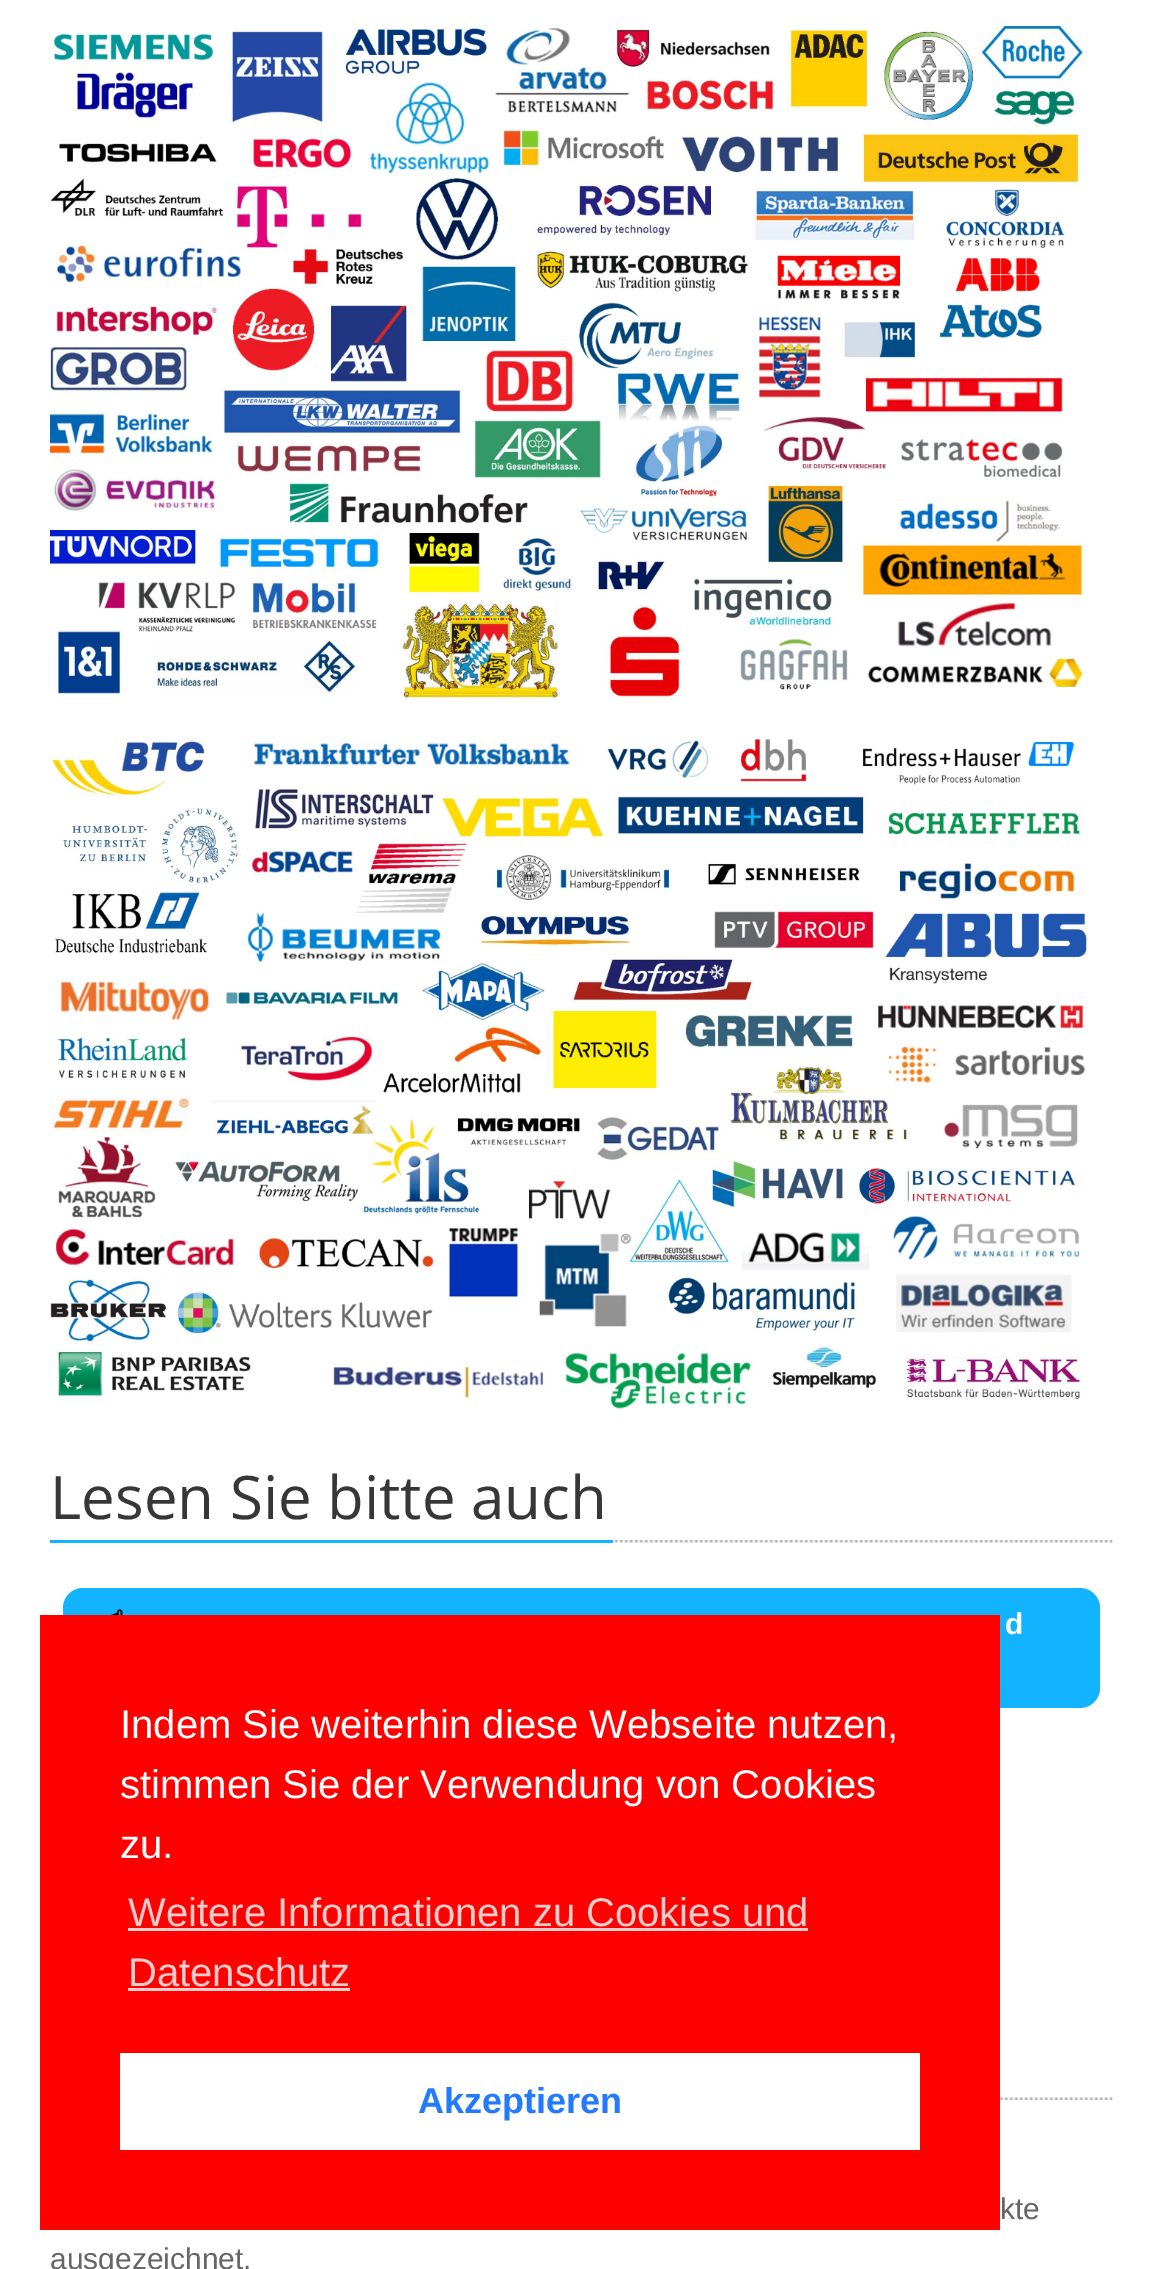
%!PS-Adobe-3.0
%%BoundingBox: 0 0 1161 2269
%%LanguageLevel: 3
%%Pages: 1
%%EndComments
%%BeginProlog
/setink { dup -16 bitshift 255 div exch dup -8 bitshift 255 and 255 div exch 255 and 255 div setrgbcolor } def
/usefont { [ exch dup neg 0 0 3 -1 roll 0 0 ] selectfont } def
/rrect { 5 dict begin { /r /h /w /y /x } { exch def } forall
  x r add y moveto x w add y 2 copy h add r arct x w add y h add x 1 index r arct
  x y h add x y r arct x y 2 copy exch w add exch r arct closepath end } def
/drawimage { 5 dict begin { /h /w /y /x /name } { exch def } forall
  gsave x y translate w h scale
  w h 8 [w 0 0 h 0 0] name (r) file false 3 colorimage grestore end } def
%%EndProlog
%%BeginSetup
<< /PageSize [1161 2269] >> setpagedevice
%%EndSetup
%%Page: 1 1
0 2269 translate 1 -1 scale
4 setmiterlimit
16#FFFFFF setink
0 0 1161 2269 rectfill
(img1.raw) 50 22 1034 678 drawimage
(img2.raw) 50 737 1038 672 drawimage
(img3.raw) 613 1540 500 3 drawimage
16#12B4FF setink
50 1540 563 3 rectfill
/OpenSans-Regular 60 usefont
16#373737 setink
50 1519 moveto (Lesen Sie bitte auch) show
16#12B4FF setink
63 1588 1037 120 20 rrect fill
(img4.raw) 111 1609 12 6 drawimage
/LiberationSans-Bold 30 usefont
16#FFFFFF setink
1005 1634 moveto (d) show
(img5.raw) 1000 2097 113 3 drawimage
/LiberationSans-Regular 30 usefont
16#676667 setink
1000 2219 moveto (kte) show
50 2269 moveto (ausgezeichnet.) show
16#FF0000 setink
40 1615 960 615 rectfill
/LiberationSans-Regular 40 usefont
16#FFFFFF setink
[
    [(Indem Sie weiterhin diese Webseite nutzen,) 120 1738]
    [(stimmen Sie der Verwendung von Cookies) 120 1798]
    [(zu.) 120 1858]
] { aload pop moveto show } forall
16#FFCCCC setink
128 1926 moveto (Weitere Informationen zu Cookies und) show
128 1928 680 3 rectfill
128 1986 moveto (Datenschutz) show
128 1988 222 3 rectfill
16#FFFFFF setink
120 2053 800 97 rectfill
/LiberationSans-Bold 36 usefont
16#237AFC setink
418 2113 moveto (Akzeptieren) show
showpage
%%EOF
